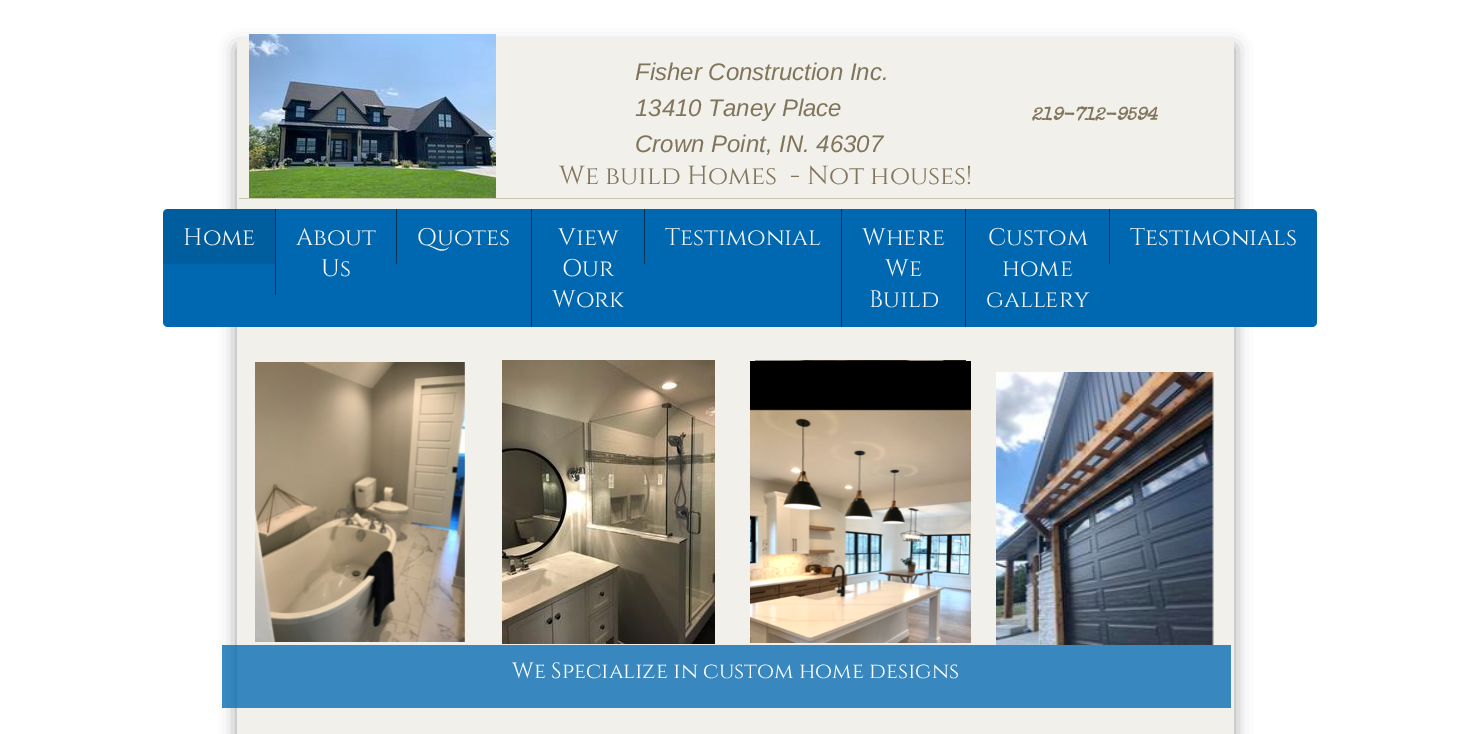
%!PS-Adobe-3.0
%%BoundingBox: 0 0 1471 734
%%LanguageLevel: 3
%%Pages: 1
%%EndComments
%%BeginProlog
/setink { dup -16 bitshift 255 div exch dup -8 bitshift 255 and 255 div exch 255 and 255 div setrgbcolor } def
/usefont { [ exch dup neg 0 0 3 -1 roll 0 0 ] selectfont } def
/setalpha { dup .setfillconstantalpha .setstrokeconstantalpha } def
/rrect { 5 dict begin { /r /h /w /y /x } { exch def } forall
  x r add y moveto x w add y 2 copy h add r arct x w add y h add x 1 index r arct
  x y h add x y r arct x y 2 copy exch w add exch r arct closepath end } def
/softshadow { 12 dict begin { /a /b /q /h /w /y /x } { exch def } forall gsave /was 0 def
  9 -2 -9 { dup b mul 4 div /e exch def 1 sub .425 mul 2.718 exch exp 1 add a .99 .min exch div /now exch def
    1 1 now sub 1 was sub div sub setalpha /was now def
    w h .min e 2 mul add 0 gt { x e sub y e sub w e 2 mul add h e 2 mul add
      q e add b .6 mul add w h .min 2 div e add .min 0 .max rrect fill } if } for grestore end } def
/drawimage { 5 dict begin { /h /w /y /x /name } { exch def } forall
  gsave x y translate w h scale
  w h 8 [w 0 0 h 0 0] name (r) file false 3 colorimage grestore end } def
%%EndProlog
%%BeginSetup
<< /PageSize [1471 734] /PageUsesTransparency true >> setpagedevice
%%EndSetup
%%Page: 1 1
0 .pushpdf14devicefilter
0 734 translate 1 -1 scale
4 setmiterlimit
16#FFFFFF setink
0 0 1471 734 rectfill
16#323232 setink
237 47 997 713 0 8.5 0.5 softshadow
16#F1F0EB setink
237 40 997 694 rectfill
(img1.raw) 249 34 247 164 drawimage
/LiberationSans-Italic 24 usefont
16#80745B setink
[
    [(Fisher Construction Inc.) 635 80]
    [(13410 Taney Place) 635 116]
    [(Crown Point, IN. 46307) 635 152]
] { aload pop moveto show } forall
/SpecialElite-BoldItalic 18 usefont
1031 120 moveto (219-712-9594) show
/Cinzel-Regular 26 usefont
559 184 moveto (We build Homes  - Not houses!) show
16#CBC7B1 setink
239 198 997 1 rectfill
16#0068B0 setink
163 209 1154 118 5 rrect fill
0.1 setalpha
16#000000 setink
163 209 112 55 rectfill
/Cinzel-Regular 24 usefont
1 setalpha
16#F6F5F2 setink
183 245 moveto (Home) show
16#003255 setink
275 209 1 86 rectfill
16#F6F5F2 setink
296 245 moveto (About) show
321 276 moveto (Us) show
16#003255 setink
396 209 1 55 rectfill
16#F6F5F2 setink
417 245 moveto (Quotes) show
16#003255 setink
531 209 1 118 rectfill
16#F6F5F2 setink
[
    [(View) 558 245]
    [(Our) 562 276]
    [(Work) 552 307]
] { aload pop moveto show } forall
16#003255 setink
644 209 1 55 rectfill
16#F6F5F2 setink
665 245 moveto (Testimonial) show
16#003255 setink
841 209 1 118 rectfill
16#F6F5F2 setink
[
    [(Where) 862 245]
    [(We) 885 276]
    [(Build) 869 307]
] { aload pop moveto show } forall
16#003255 setink
965 209 1 118 rectfill
16#F6F5F2 setink
[
    [(Custom) 988 245]
    [(home) 1002 276]
    [(gallery) 986 307]
] { aload pop moveto show } forall
16#003255 setink
1109 209 1 55 rectfill
16#F6F5F2 setink
1130 245 moveto (Testimonials) show
(img2.raw) 502 360 213 284 drawimage
(img3.raw) 755 360 211 1 drawimage
(img4.raw) 255 362 210 280 drawimage
(img5.raw) 750 361 221 282 drawimage
(img6.raw) 996 372 218 273 drawimage
0.77 setalpha
16#0068B0 setink
222 645 1009 63 rectfill
/Cinzel-Regular 22 usefont
1 setalpha
16#FFFFFF setink
512 678 moveto (We Specialize in custom home designs) show
.poppdf14devicefilter showpage
%%EOF
